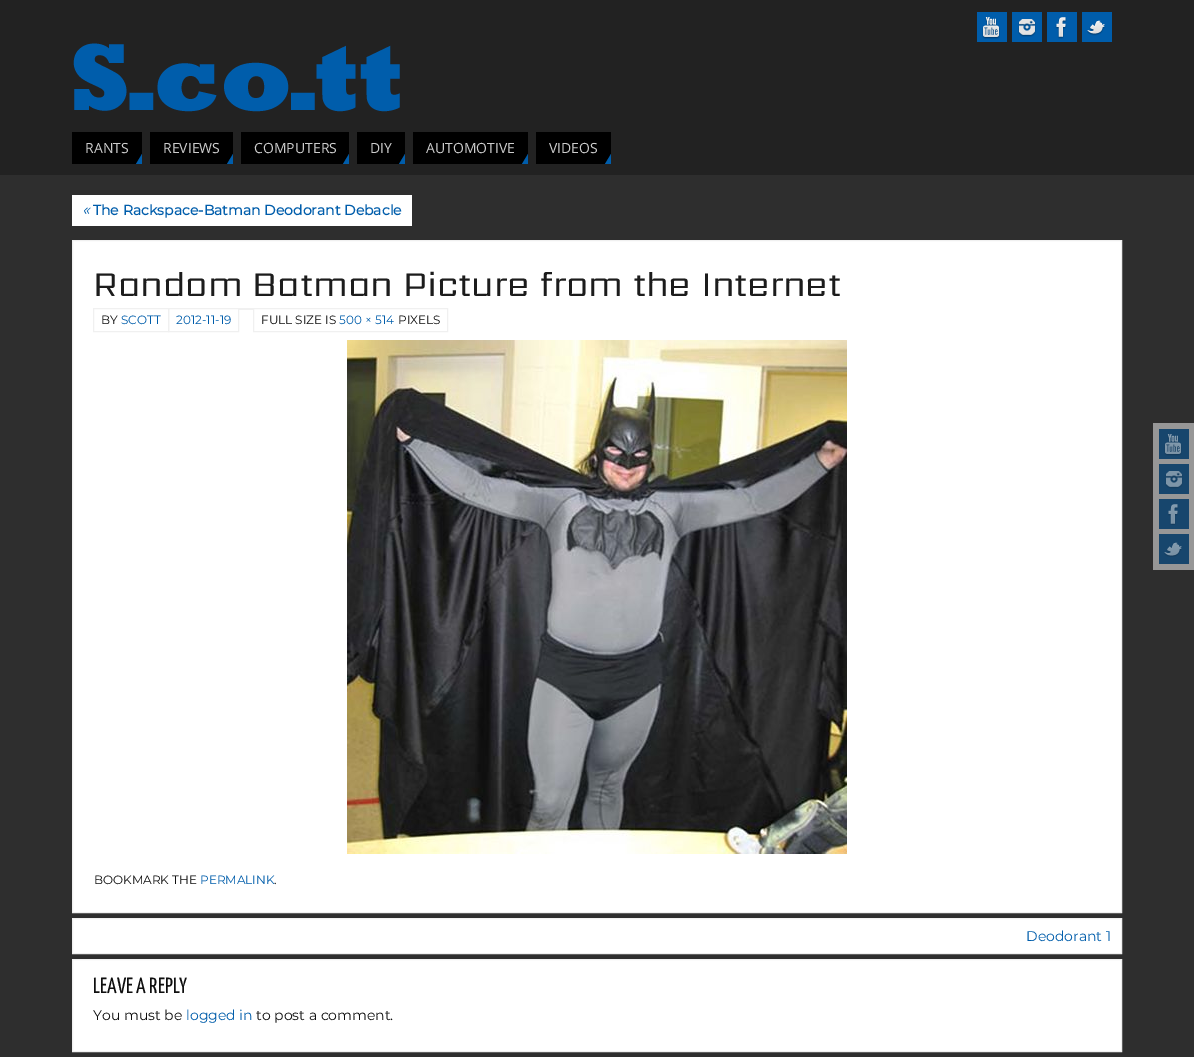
%!PS-Adobe-3.0
%%BoundingBox: 0 0 1194 1057
%%LanguageLevel: 3
%%Pages: 1
%%EndComments
%%BeginProlog
/setink { dup -16 bitshift 255 div exch dup -8 bitshift 255 and 255 div exch 255 and 255 div setrgbcolor } def
/usefont { [ exch dup neg 0 0 3 -1 roll 0 0 ] selectfont } def
/drawimage { 5 dict begin { /h /w /y /x /name } { exch def } forall
  gsave x y translate w h scale
  w h 8 [w 0 0 h 0 0] name (r) file false 3 colorimage grestore end } def
%%EndProlog
%%BeginSetup
<< /PageSize [1194 1057] >> setpagedevice
%%EndSetup
%%Page: 1 1
0 1057 translate 1 -1 scale
4 setmiterlimit
16#2E2E2E setink
0 0 1194 1057 rectfill
16#222222 setink
0 0 1194 175 rectfill
16#005DAB setink
977 12 30 30 rectfill
(img1.raw) 982 17 18 22 drawimage
1012 12 30 30 rectfill
(img2.raw) 1018 19 18 18 drawimage
1047 12 30 30 rectfill
(img3.raw) 1055 17 12 22 drawimage
1082 12 30 30 rectfill
(img4.raw) 1087 20 19 16 drawimage
(img5.raw) 73 43 327 69 drawimage
16#000000 setink
72 132 70 32 rectfill
/OpenSans-Regular 14 usefont
16#CCCCCC setink
85 153 moveto (RANTS) show
16#005DAB setink
142 164 moveto 136 164 lineto 142 154 lineto closepath fill
16#000000 setink
150 132 83 32 rectfill
16#CCCCCC setink
163 153 moveto (REVIEWS) show
16#005DAB setink
233 164 moveto 227 164 lineto 233 154 lineto closepath fill
16#000000 setink
241 132 108 32 rectfill
16#CCCCCC setink
254 153 moveto (COMPUTERS) show
16#005DAB setink
349 164 moveto 343 164 lineto 349 154 lineto closepath fill
16#000000 setink
357 132 48 32 rectfill
16#CCCCCC setink
370 153 moveto (DIY) show
16#005DAB setink
405 164 moveto 399 164 lineto 405 154 lineto closepath fill
16#000000 setink
413 132 115 32 rectfill
16#CCCCCC setink
426 153 moveto (AUTOMOTIVE) show
16#005DAB setink
528 164 moveto 522 164 lineto 528 154 lineto closepath fill
16#000000 setink
536 132 75 32 rectfill
16#CCCCCC setink
549 153 moveto (VIDEOS) show
16#005DAB setink
611 164 moveto 605 164 lineto 611 154 lineto closepath fill
16#FFFFFF setink
72 195 340 31 rectfill
/Montserrat-ThinItalic 16 usefont
16#005DAB setink
82 215 moveto («) show
/Montserrat-Bold 14 usefont
93 215 moveto (The Rackspace-Batman Deodorant Debacle) show
16#FFFFFF setink
72.5 240.5 moveto 1121.5 240.5 lineto 1121.5 912.5 lineto 72.5 912.5 lineto closepath gsave fill grestore
16#F0F0F0 setink
stroke
/Sarpanch-Regular 36 usefont
16#1C1C1C setink
93 296 moveto (Random Batman Picture from the Internet) show
16#F0F0F0 setink
93.5 308.5 75 23 rectstroke
168.5 308.5 70 23 rectstroke
238 308 16 2 rectfill
/Montserrat-Thin 12 usefont
16#0F0F0F setink
101 324 moveto (BY) show
16#005DAB setink
121 324 moveto (SCOTT) show
176 324 moveto (2012-11-19) show
16#F0F0F0 setink
253.5 308.5 194 23 rectstroke
16#0F0F0F setink
261 324 moveto (FULL SIZE IS) show
16#005DAB setink
339 324 moveto (500 × 514) show
16#0F0F0F setink
398 324 moveto (PIXELS) show
(img6.raw) 347 340 500 514 drawimage
94 884 moveto (BOOKMARK THE) show
16#005DAB setink
200 884 moveto (PERMALINK) show
16#0F0F0F setink
274 884 moveto (.) show
16#FFFFFF setink
72.5 918.5 moveto 1121.5 918.5 lineto 1121.5 953.5 lineto 72.5 953.5 lineto closepath gsave fill grestore
16#F0F0F0 setink
stroke
/Montserrat-Thin 14 usefont
16#005DAB setink
1026 941 moveto (Deodorant 1) show
16#FFFFFF setink
72.5 959.5 moveto 1121.5 959.5 lineto 1121.5 1051.5 lineto 72.5 1051.5 lineto closepath gsave fill grestore
16#F0F0F0 setink
stroke
/YanoneKaffeesatz-Regular 22 usefont
16#0F0F0F setink
93 993 moveto (LEAVE A REPLY) show
/Montserrat-Thin 14 usefont
93 1020 moveto (You must be) show
16#005DAB setink
186 1020 moveto (logged in) show
16#0F0F0F setink
256 1020 moveto (to post a comment.) show
16#979797 setink
1153 423 41 147 rectfill
16#17466D setink
1159 429 30 30 rectfill
(img7.raw) 1164 434 18 22 drawimage
1159 464 30 30 rectfill
(img8.raw) 1165 471 18 18 drawimage
1159 499 30 30 rectfill
(img9.raw) 1168 504 10 21 drawimage
1159 534 30 30 rectfill
(img10.raw) 1164 542 18 15 drawimage
showpage
%%EOF
